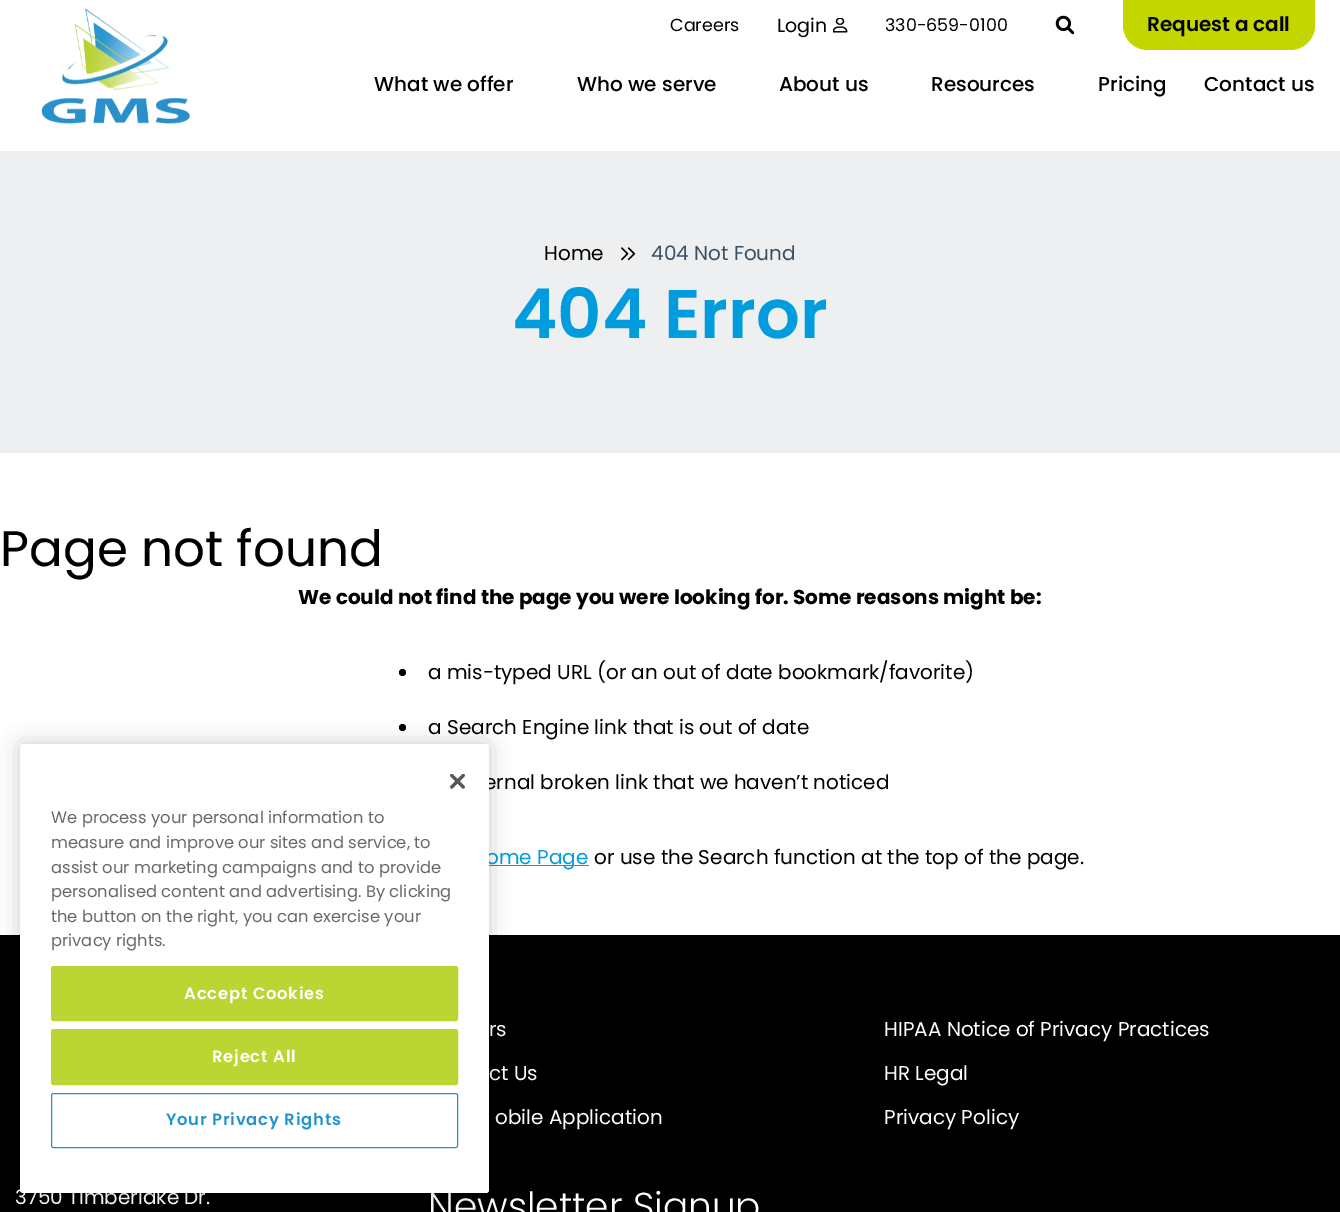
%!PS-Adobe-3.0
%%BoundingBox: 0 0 1340 1212
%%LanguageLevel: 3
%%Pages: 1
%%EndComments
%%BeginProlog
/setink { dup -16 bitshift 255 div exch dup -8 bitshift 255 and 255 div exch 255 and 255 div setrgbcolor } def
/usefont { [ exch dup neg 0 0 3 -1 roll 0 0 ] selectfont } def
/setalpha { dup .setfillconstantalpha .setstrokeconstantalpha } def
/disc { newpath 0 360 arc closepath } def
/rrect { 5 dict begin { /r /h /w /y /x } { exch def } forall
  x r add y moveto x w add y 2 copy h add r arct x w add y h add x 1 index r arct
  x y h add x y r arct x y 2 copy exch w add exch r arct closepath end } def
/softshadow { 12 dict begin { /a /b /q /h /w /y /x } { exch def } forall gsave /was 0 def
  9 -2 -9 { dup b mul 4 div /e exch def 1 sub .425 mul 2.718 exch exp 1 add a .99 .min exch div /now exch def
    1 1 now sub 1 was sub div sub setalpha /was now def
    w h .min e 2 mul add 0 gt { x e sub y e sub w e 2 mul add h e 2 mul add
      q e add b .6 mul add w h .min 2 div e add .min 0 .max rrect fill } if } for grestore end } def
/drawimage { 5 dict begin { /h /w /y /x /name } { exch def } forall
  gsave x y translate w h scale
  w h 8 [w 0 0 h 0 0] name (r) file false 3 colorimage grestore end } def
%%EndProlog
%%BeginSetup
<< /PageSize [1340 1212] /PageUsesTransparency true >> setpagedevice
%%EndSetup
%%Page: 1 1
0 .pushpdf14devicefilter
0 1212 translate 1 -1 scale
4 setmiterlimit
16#FFFFFF setink
0 0 1340 1212 rectfill
(img1.raw) 41 8 149 116 drawimage
/Poppins-Regular 17.5 usefont
16#000000 setink
670 31 moveto (Careers) show
/Poppins-Regular 19 usefont
777 32 moveto (Login) show
(img2.raw) 833 18 15 15 drawimage
/Poppins-Regular 17.5 usefont
885 31 moveto (330-659-0100) show
(img3.raw) 1055 15 20 20 drawimage
16#C4D600 setink
1123 0 moveto 1315 0 lineto 1315 25 lineto 1315 39 1304 50 1290 50 curveto 1148 50 lineto 1134 50 1123 39 1123 25 curveto closepath fill
/Poppins-SemiBold 20 usefont
16#000000 setink
1147 31 moveto (Request a call) show
/Poppins-Medium 20 usefont
[
    [(What we offer) 374 91]
    [(Who we serve) 577 91]
    [(About us) 779 91]
    [(Resources) 931 91]
    [(Pricing) 1098 91]
    [(Contact us) 1204 91]
] { aload pop moveto show } forall
16#EDEFF0 setink
0 151 1340 302 rectfill
/Poppins-Regular 20 usefont
16#000000 setink
544 260 moveto (Home) show
(img4.raw) 621 247 15 14 drawimage
16#3A5063 setink
651 260 moveto (404 Not Found) show
/Poppins-SemiBold 68.75 usefont
16#009CDE setink
512 338 moveto (404 Error) show
/Poppins-Regular 50 usefont
16#000000 setink
0 566 moveto (Page not found) show
/Poppins-Bold 20 usefont
298 604 moveto (We could not find the page you were looking for. Some reasons might be:) show
402.5 672.5 3.5 disc fill
/Poppins-Regular 20 usefont
428 679 moveto (a mis-typed URL \(or an out of date bookmark/favorite\)) show
402.5 727.5 3.5 disc fill
428 734 moveto (a Search Engine link that is out of date) show
484 789 moveto (ernal broken link that we haven’t noticed) show
16#009CDE setink
489 865 100 1 rectfill
486 864 moveto (ome Page) show
16#000000 setink
594 864 moveto (or use the Search function at the top of the page.) show
0 935 1340 277 rectfill
16#FFFFFF setink
[
    [(3750 Timberlake Dr.) 15 1204]
    [(rs) 489 1036]
    [(HIPAA Notice of Privacy Practices) 884 1036]
    [(ct Us) 489 1080]
    [(HR Legal) 884 1080]
    [(obile Application) 495 1124]
    [(Privacy Policy) 884 1124]
] { aload pop moveto show } forall
/Poppins-Light 37.5 usefont
428 1219 moveto (Newsletter Signup) show
16#000000 setink
20 744 469 449 3 11 0.2 softshadow
16#FFFFFF setink
20 744 469 449 3 rrect fill
(img5.raw) 450 774 15 15 drawimage
/Poppins-Regular 16.4 usefont
16#696969 setink
[
    [(We process your personal information to) 51 823]
    [(measure and improve our sites and service, to) 51 848]
    [(assist our marketing campaigns and to provide) 51 873]
    [(personalised content and advertising. By clicking) 51 897]
    [(the button on the right, you can exercise your) 51 922]
    [(privacy rights.) 51 946]
] { aload pop moveto show } forall
16#BBD532 setink
51.5 966.5 406 54 2 rrect gsave fill grestore
stroke
/Poppins-SemiBold 16.4 usefont
16#FFFFFF setink
184 999 moveto 0.8 0 (Accept Cookies) ashow
16#BBD532 setink
51.5 1029.5 406 55 2 rrect gsave fill grestore
stroke
16#FFFFFF setink
212 1062 moveto 0.8 0 (Reject All) ashow
16#2293CE setink
51.5 1093.5 406 54 2 rrect stroke
166 1125 moveto 0.8 0 (Your Privacy Rights) ashow
.poppdf14devicefilter showpage
%%EOF
